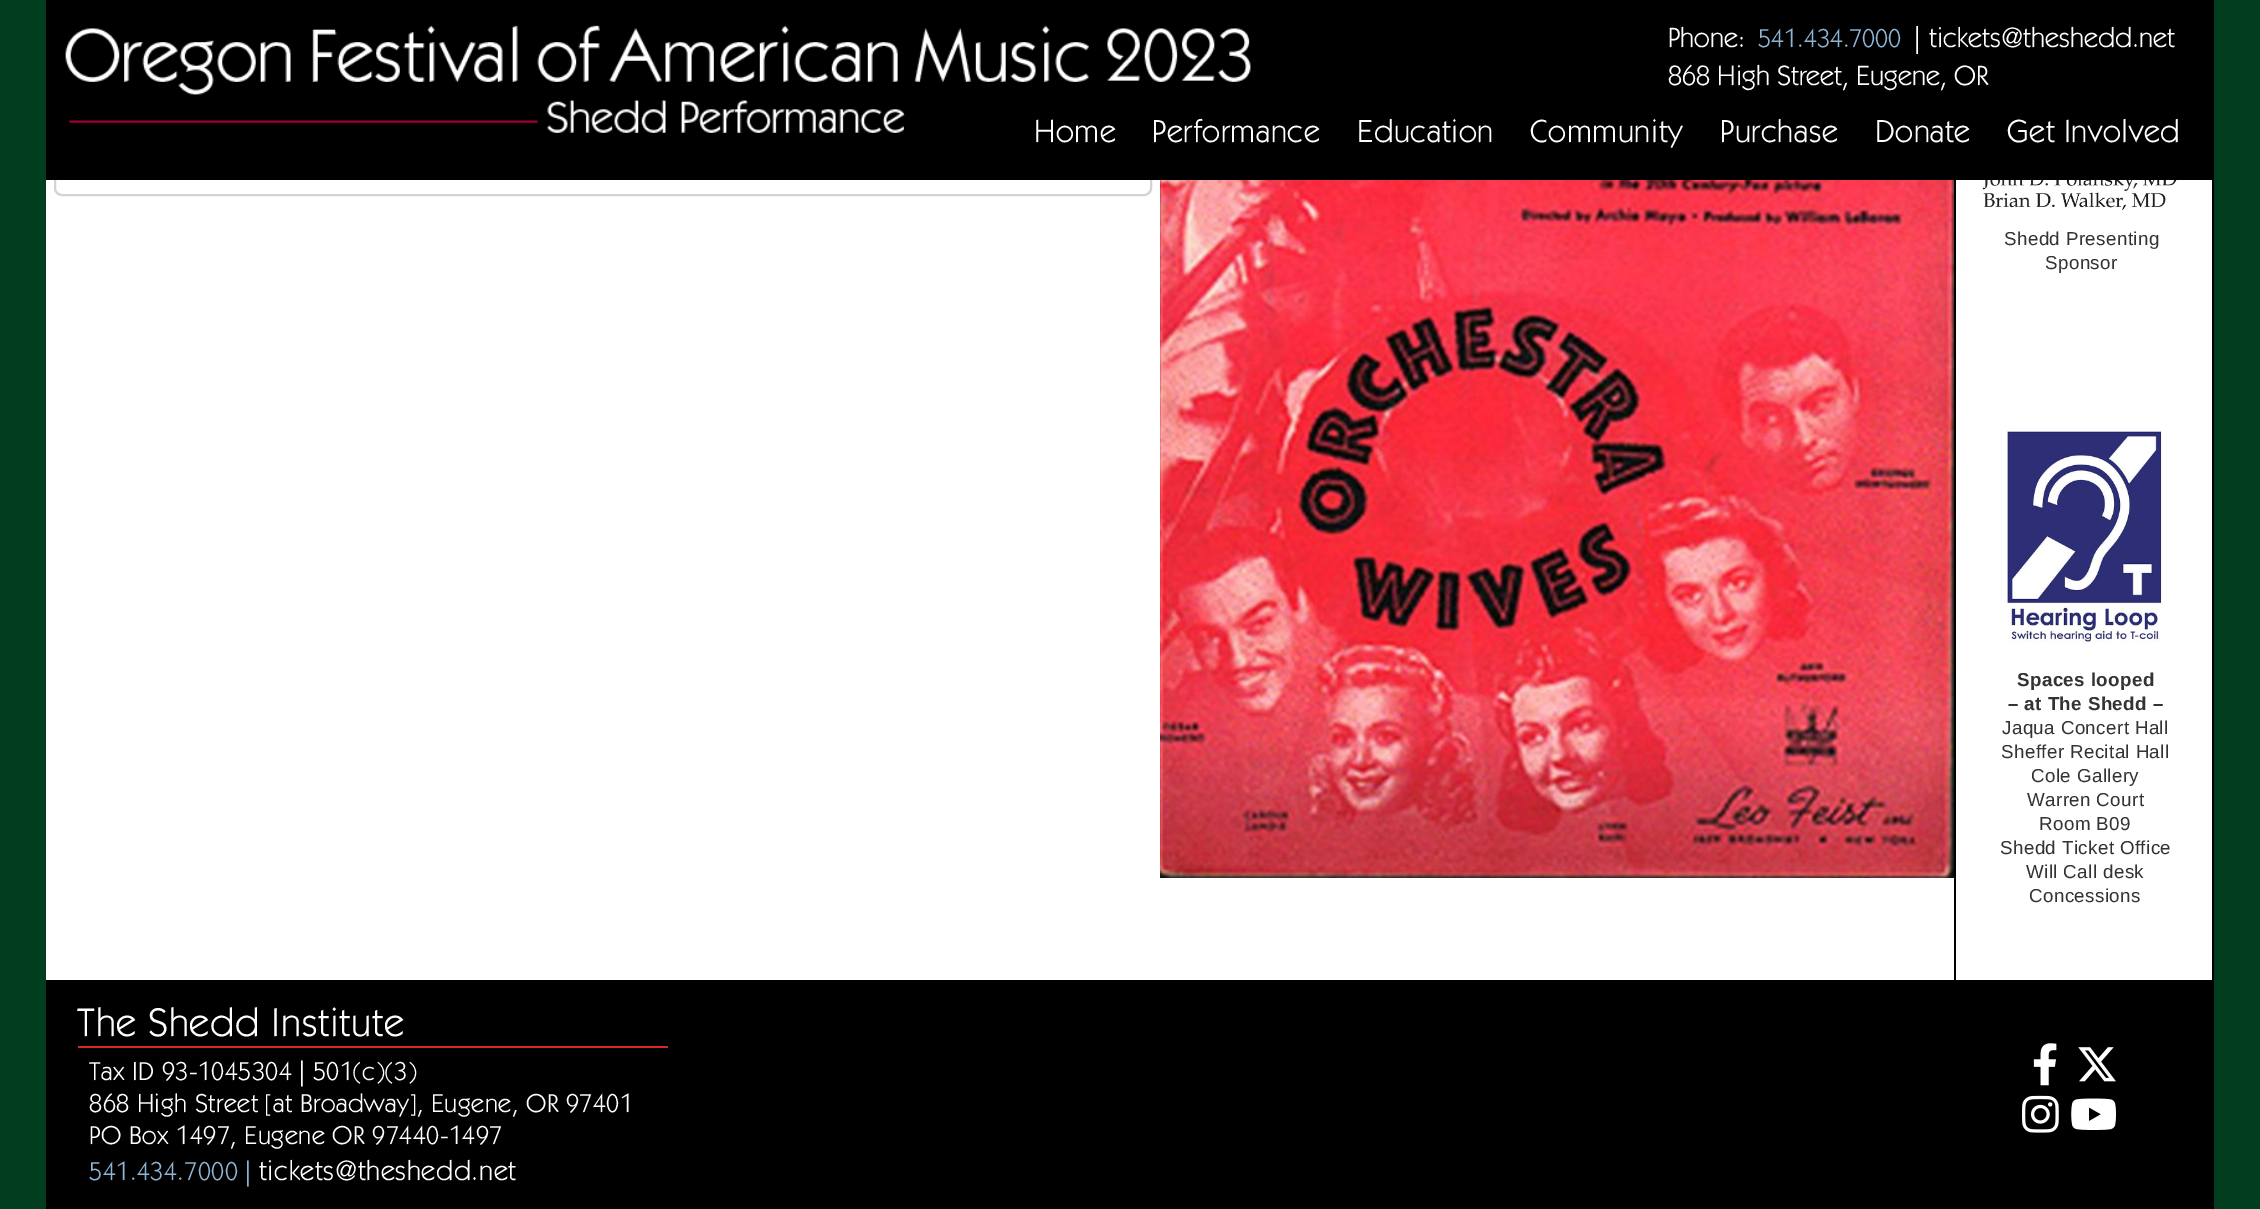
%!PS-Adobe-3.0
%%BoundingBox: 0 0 2260 1209
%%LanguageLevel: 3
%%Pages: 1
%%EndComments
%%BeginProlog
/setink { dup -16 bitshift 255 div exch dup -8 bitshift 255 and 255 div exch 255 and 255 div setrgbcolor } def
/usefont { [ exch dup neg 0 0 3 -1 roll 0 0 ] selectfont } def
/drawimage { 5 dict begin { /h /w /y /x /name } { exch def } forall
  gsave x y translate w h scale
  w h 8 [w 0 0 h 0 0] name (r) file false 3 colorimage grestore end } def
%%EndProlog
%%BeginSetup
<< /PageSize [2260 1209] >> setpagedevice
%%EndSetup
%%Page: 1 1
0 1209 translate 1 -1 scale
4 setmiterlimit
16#003E1F setink
0 0 2260 1209 rectfill
16#FFFFFF setink
46 180 2166 800 rectfill
16#D3D3D3 setink
2 setlinewidth
55 153 moveto 1144 153 lineto 1148 153 1151 156 1151 160 curveto 1151 188 lineto 1151 192 1148 195 1144 195 curveto 62 195 lineto 58 195 55 192 55 188 curveto closepath stroke
16#000000 setink
46 0 2168 180 rectfill
(img1.raw) 65 25 1186 108 drawimage
/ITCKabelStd-Regular 28 usefont
16#FFFFFF setink
1668 47 moveto (Phone:) show
/ITCKabelStd-Regular 26 usefont
16#8EB4D3 setink
1758 47 moveto (541.434.7000) show
/ITCKabelStd-Regular 28 usefont
16#FFFFFF setink
[
    [(|) 1914 47]
    [(tickets@theshedd.net) 1929 47]
    [(868 High Street, Eugene, OR) 1668 85]
] { aload pop moveto show } forall
/ITCKabelStd-Regular 32 usefont
1034 142 moveto 0.6 0 (Home) ashow
1152 142 moveto 0.6 0 (Performance) ashow
1357 142 moveto 0.6 0 (Education) ashow
1530 142 moveto 0.6 0 (Community) ashow
1720 142 moveto 0.6 0 (Purchase) ashow
1875 142 moveto 0.6 0 (Donate) ashow
2007 142 moveto 0.6 0 (Get Involved) ashow
(img2.raw) 1160 180 794 698 drawimage
16#000000 setink
2212 180 2 800 rectfill
1954 180 2 800 rectfill
(img3.raw) 1980 180 200 30 drawimage
/LiberationSans-Regular 18.75 usefont
16#333333 setink
2004 245 moveto 0.4 0 (Shedd Presenting) ashow
2045 269 moveto 0.4 0 (Sponsor) ashow
(img4.raw) 2004 428 159 216 drawimage
/LiberationSans-Bold 18.75 usefont
2017 686 moveto 0.4 0 (Spaces looped) ashow
2008 710 moveto 0.4 0 (– at The Shedd –) ashow
/LiberationSans-Regular 18.75 usefont
2002 734 moveto 0.4 0 (Jaqua Concert Hall) ashow
2001 758 moveto 0.4 0 (Sheffer Recital Hall) ashow
2031 782 moveto 0.4 0 (Cole Gallery) ashow
2027 806 moveto 0.4 0 (Warren Court) ashow
2039 830 moveto 0.4 0 (Room B09) ashow
2000 854 moveto 0.4 0 (Shedd Ticket Office) ashow
2026 878 moveto 0.4 0 (Will Call desk) ashow
2029 902 moveto 0.4 0 (Concessions) ashow
16#000000 setink
46 980 2168 229 rectfill
16#D9262A setink
78 1046 590 2 rectfill
/ITCKabelStd-Regular 40 usefont
16#FFFFFF setink
77 1036 moveto 0.75 0 (The Shedd Institute) ashow
/ITCKabelStd-Regular 26 usefont
89 1080 moveto 0.5 0 (Tax ID 93-1045304 | 501\(c\)\(3\)) ashow
89 1112 moveto 0.5 0 (868 High Street [at Broadway], Eugene, OR 97401) ashow
89 1144 moveto 0.5 0 (PO Box 1497, Eugene OR 97440-1497) ashow
16#8EB4D3 setink
89 1180 moveto 0.5 0 (541.434.7000 |) ashow
/ITCKabelStd-Regular 28 usefont
16#FFFFFF setink
259 1180 moveto 0.6 0 (tickets@theshedd.net) ashow
(img5.raw) 2033 1043 24 43 drawimage
(img6.raw) 2078 1047 38 35 drawimage
(img7.raw) 2022 1095 37 38 drawimage
(img8.raw) 2071 1098 45 32 drawimage
showpage
%%EOF
